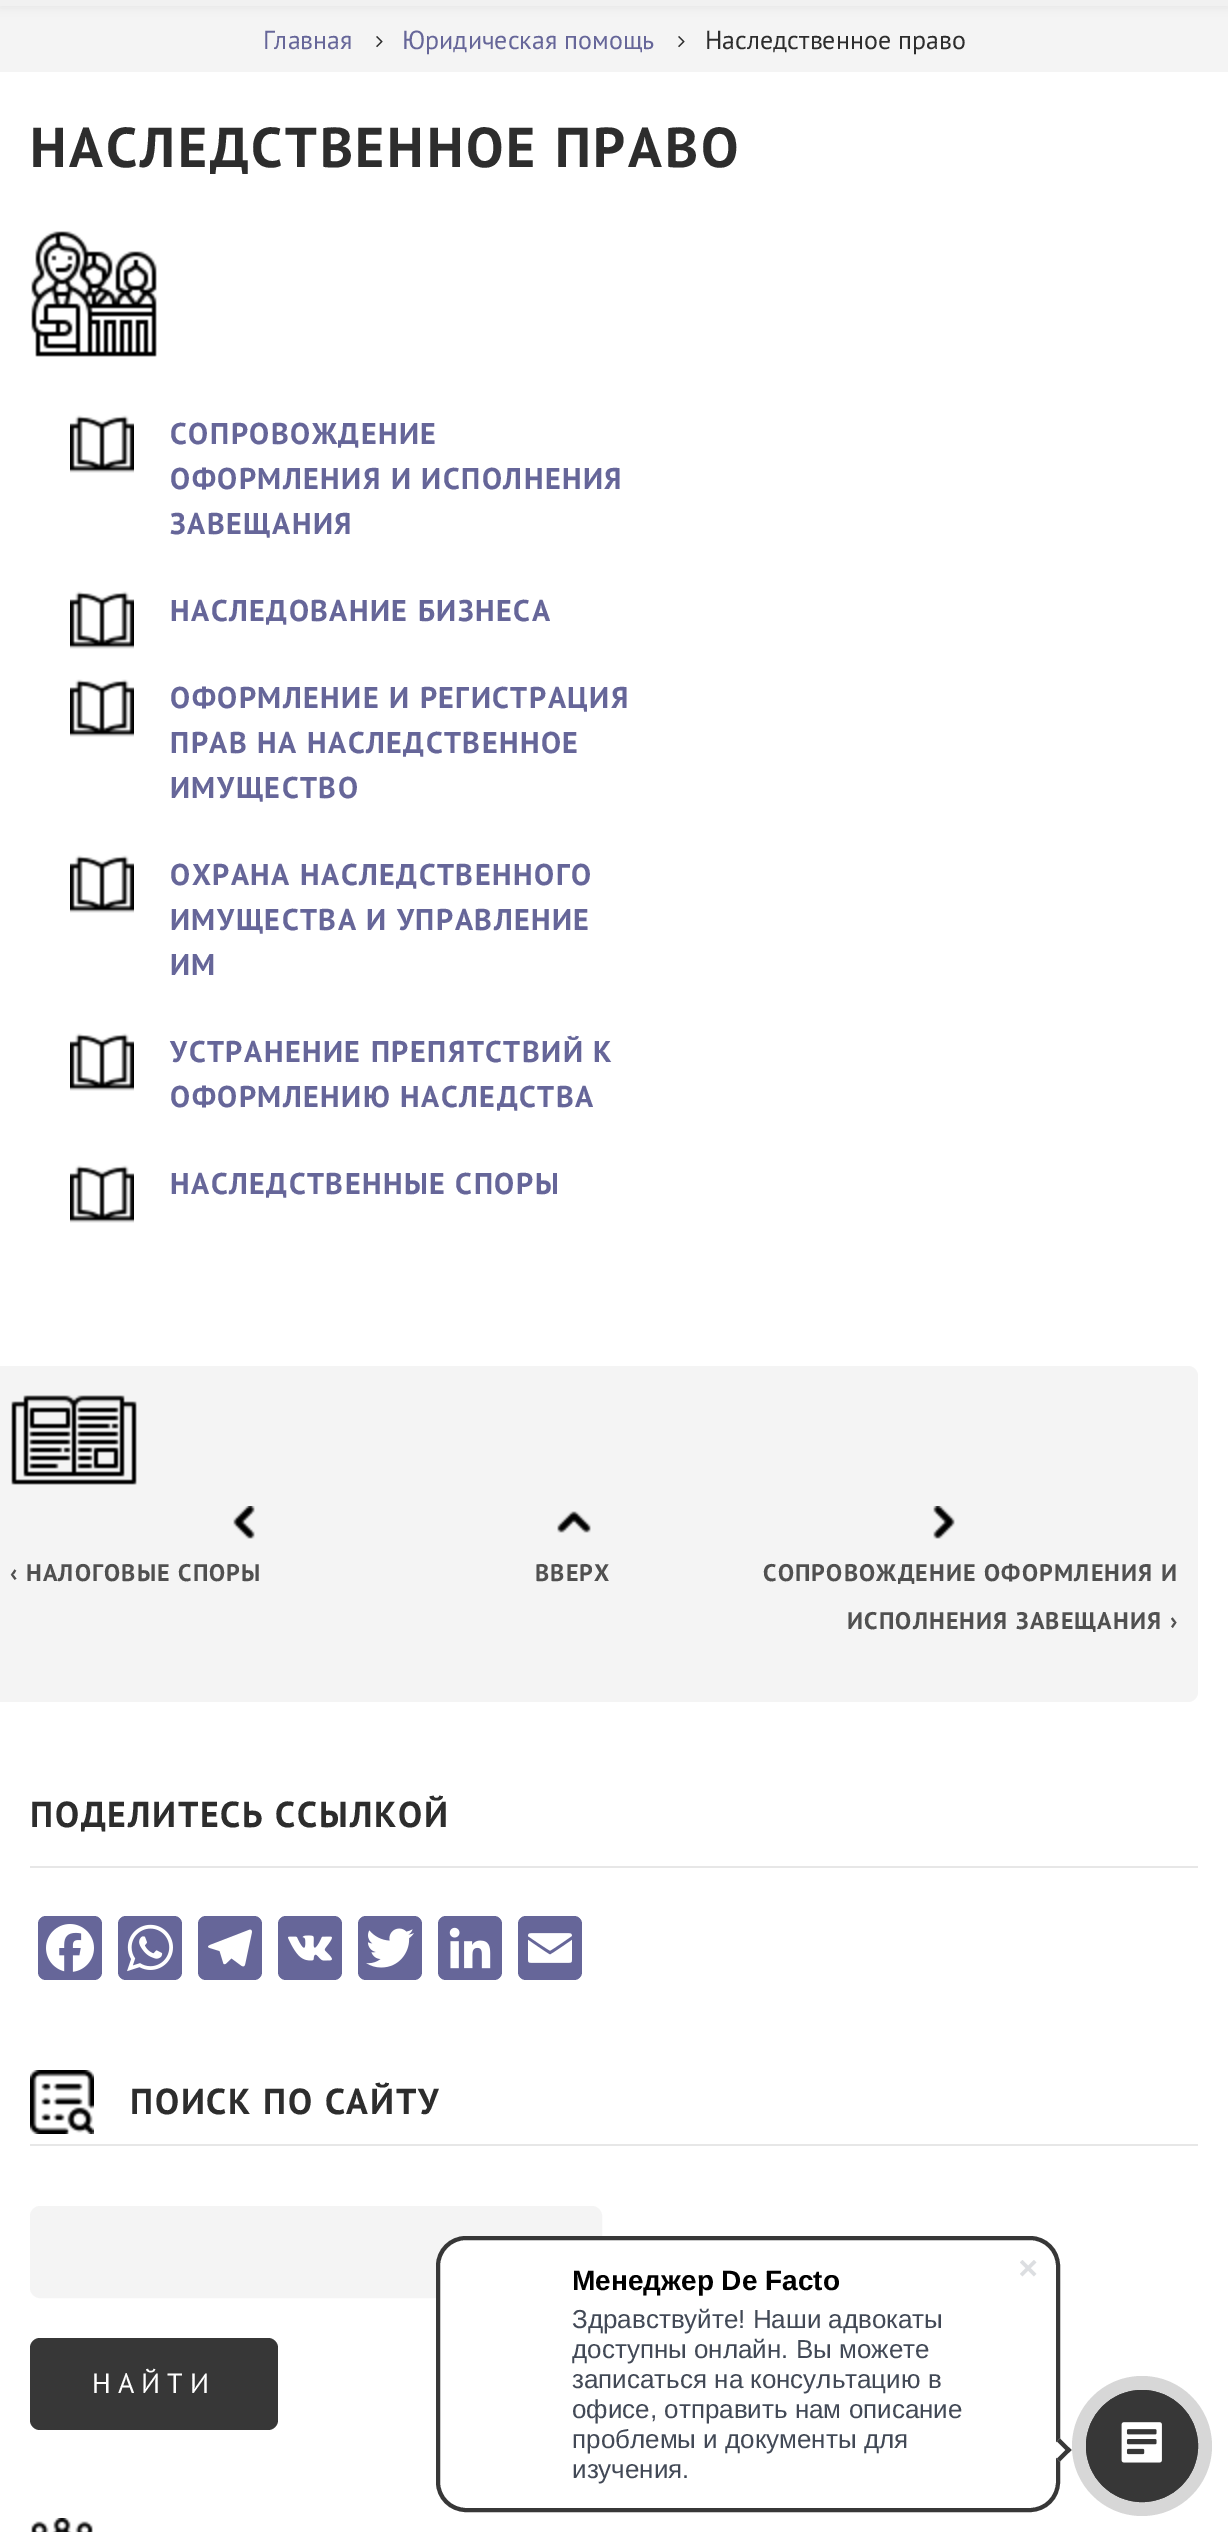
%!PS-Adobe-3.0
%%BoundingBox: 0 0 1228 2532
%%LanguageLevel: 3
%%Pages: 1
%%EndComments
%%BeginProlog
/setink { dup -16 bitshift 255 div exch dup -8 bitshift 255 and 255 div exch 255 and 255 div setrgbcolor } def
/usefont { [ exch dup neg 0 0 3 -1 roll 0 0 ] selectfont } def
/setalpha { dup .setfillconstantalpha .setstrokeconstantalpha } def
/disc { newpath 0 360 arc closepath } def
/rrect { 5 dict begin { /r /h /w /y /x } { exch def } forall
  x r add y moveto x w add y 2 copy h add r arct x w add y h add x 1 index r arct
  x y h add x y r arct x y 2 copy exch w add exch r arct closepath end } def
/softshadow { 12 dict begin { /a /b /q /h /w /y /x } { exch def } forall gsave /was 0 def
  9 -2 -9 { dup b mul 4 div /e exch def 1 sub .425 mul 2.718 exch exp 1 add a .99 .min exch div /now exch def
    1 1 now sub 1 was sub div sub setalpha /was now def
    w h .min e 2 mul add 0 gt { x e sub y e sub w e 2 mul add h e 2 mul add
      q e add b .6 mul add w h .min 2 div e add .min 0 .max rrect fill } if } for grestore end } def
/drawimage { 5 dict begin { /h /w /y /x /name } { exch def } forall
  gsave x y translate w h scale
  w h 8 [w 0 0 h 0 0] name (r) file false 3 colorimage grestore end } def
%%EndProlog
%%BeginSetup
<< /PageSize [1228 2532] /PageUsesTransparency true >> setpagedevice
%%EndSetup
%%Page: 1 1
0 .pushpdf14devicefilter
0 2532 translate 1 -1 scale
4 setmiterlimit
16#FFFFFF setink
0 0 1228 2532 rectfill
16#F4F4F4 setink
0 6 1228 66 rectfill
16#000000 setink
0 -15 1228 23 0 5 0.05 softshadow
16#F1F1F1 setink
0 0 1228 6 rectfill
/PTSans-Regular 26 usefont
16#666699 setink
263 49 moveto (Главная) show
(img1.raw) 376 36 7 12 drawimage
402 49 moveto (Юридическая помощь) show
(img1.raw) 678 36 7 12 drawimage
16#2D2D2D setink
705 49 moveto (Наследственное право) show
/PTSans-Bold 56 usefont
30 167 moveto 2.75 0 (НАСЛЕДСТВЕННОЕ ПРАВО) ashow
(img2.raw) 31 231 126 126 drawimage
(img3.raw) 70 415 64 58 drawimage
/PTSans-Bold 30 usefont
16#666699 setink
170 444 moveto 1.5 0 (СОПРОВОЖДЕНИЕ) ashow
170 489 moveto 1.5 0 (ОФОРМЛЕНИЯ И ИСПОЛНЕНИЯ) ashow
170 534 moveto 1.5 0 (ЗАВЕЩАНИЯ) ashow
(img3.raw) 70 591 64 58 drawimage
170 621 moveto 1.5 0 (НАСЛЕДОВАНИЕ БИЗНЕСА) ashow
(img3.raw) 70 679 64 58 drawimage
170 708 moveto 1.5 0 (ОФОРМЛЕНИЕ И РЕГИСТРАЦИЯ) ashow
170 753 moveto 1.5 0 (ПРАВ НА НАСЛЕДСТВЕННОЕ) ashow
170 798 moveto 1.5 0 (ИМУЩЕСТВО) ashow
(img3.raw) 70 855 64 58 drawimage
170 885 moveto 1.5 0 (ОХРАНА НАСЛЕДСТВЕННОГО) ashow
170 930 moveto 1.5 0 (ИМУЩЕСТВА И УПРАВЛЕНИЕ) ashow
170 975 moveto 1.5 0 (ИМ) ashow
(img3.raw) 70 1033 64 58 drawimage
170 1062 moveto 1.5 0 (УСТРАНЕНИЕ ПРЕПЯТСТВИЙ К) ashow
170 1107 moveto 1.5 0 (ОФОРМЛЕНИЮ НАСЛЕДСТВА) ashow
(img3.raw) 70 1165 64 58 drawimage
170 1194 moveto 1.5 0 (НАСЛЕДСТВЕННЫЕ СПОРЫ) ashow
16#F4F4F4 setink
-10 1366 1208 336 10 rrect fill
(img4.raw) 11 1395 126 90 drawimage
(img5.raw) 233 1506 22 33 drawimage
/PTSans-Bold 24 usefont
16#505050 setink
10 1581 moveto 1.2 0 (‹ НАЛОГОВЫЕ СПОРЫ) ashow
(img6.raw) 557 1511 34 22 drawimage
535 1581 moveto 1.2 0 (ВВЕРХ) ashow
(img7.raw) 933 1506 22 33 drawimage
763 1581 moveto 1.2 0 (СОПРОВОЖДЕНИЕ ОФОРМЛЕНИЯ И) ashow
847 1629 moveto 1.2 0 (ИСПОЛНЕНИЯ ЗАВЕЩАНИЯ ›) ashow
16#E7E7E7 setink
30 1866 1168 2 rectfill
/PTSans-Bold 36 usefont
16#2D2D2D setink
30 1827 moveto 1.75 0 (ПОДЕЛИТЕСЬ ССЫЛКОЙ) ashow
16#666699 setink
38 1916 64 64 8 rrect fill
(img8.raw) 46 1924 48 48 drawimage
118 1916 64 64 8 rrect fill
(img9.raw) 127 1924 46 48 drawimage
198 1916 64 64 8 rrect fill
(img10.raw) 208 1929 44 38 drawimage
278 1916 64 64 8 rrect fill
(img11.raw) 288 1935 44 26 drawimage
358 1916 64 64 8 rrect fill
(img12.raw) 366 1928 48 40 drawimage
438 1916 64 64 8 rrect fill
(img13.raw) 449 1927 42 42 drawimage
518 1916 64 64 8 rrect fill
(img14.raw) 528 1933 44 30 drawimage
(img15.raw) 30 2070 64 64 drawimage
16#E7E7E7 setink
30 2144 1168 2 rectfill
16#2D2D2D setink
130 2114 moveto 1.75 0 (ПОИСК ПО САЙТУ) ashow
16#F4F4F4 setink
31 2207 570 90 9 rrect gsave fill grestore
2 setlinewidth
stroke
16#373737 setink
30 2338 248 92 10 rrect fill
/PTSans-Regular 28 usefont
16#FFFFFF setink
92 2393 moveto 7 0 (НАЙТИ) ashow
(img16.raw) 30 2518 63 14 drawimage
438 2238 620 272 28 rrect gsave fill grestore
16#373737 setink
4 setlinewidth
stroke
/LiberationSans-Bold 28 usefont
16#000000 setink
572 2290 moveto (Менеджер De Facto) show
/LiberationSans-Regular 26 usefont
16#424956 setink
[
    [(Здравствуйте! Наши адвокаты) 572 2328]
    [(доступны онлайн. Вы можете) 572 2358]
    [(записаться на консультацию в) 572 2388]
    [(офисе, отправить нам описание) 572 2418]
    [(проблемы и документы для) 572 2448]
    [(изучения.) 572 2478]
] { aload pop moveto show } forall
(img17.raw) 1020 2260 17 17 drawimage
16#FFFFFF setink
1048.5 2450 moveto 1060 2438.5 lineto 1071.5 2450 lineto 1060 2461.5 lineto closepath fill
16#373737 setink
1057 2441.5 moveto 1060 2438.5 lineto 1071.5 2450 lineto 1068.5 2453 lineto closepath fill
1057 2458.5 moveto 1068.5 2447 lineto 1071.5 2450 lineto 1060 2461.5 lineto closepath fill
16#D7D7D7 setink
1142 2446 70 disc fill
16#373737 setink
2 setlinewidth
1142 2446 55 disc stroke
1142 2446 56 disc fill
(img18.raw) 1121 2422 41 41 drawimage
.poppdf14devicefilter showpage
%%EOF
